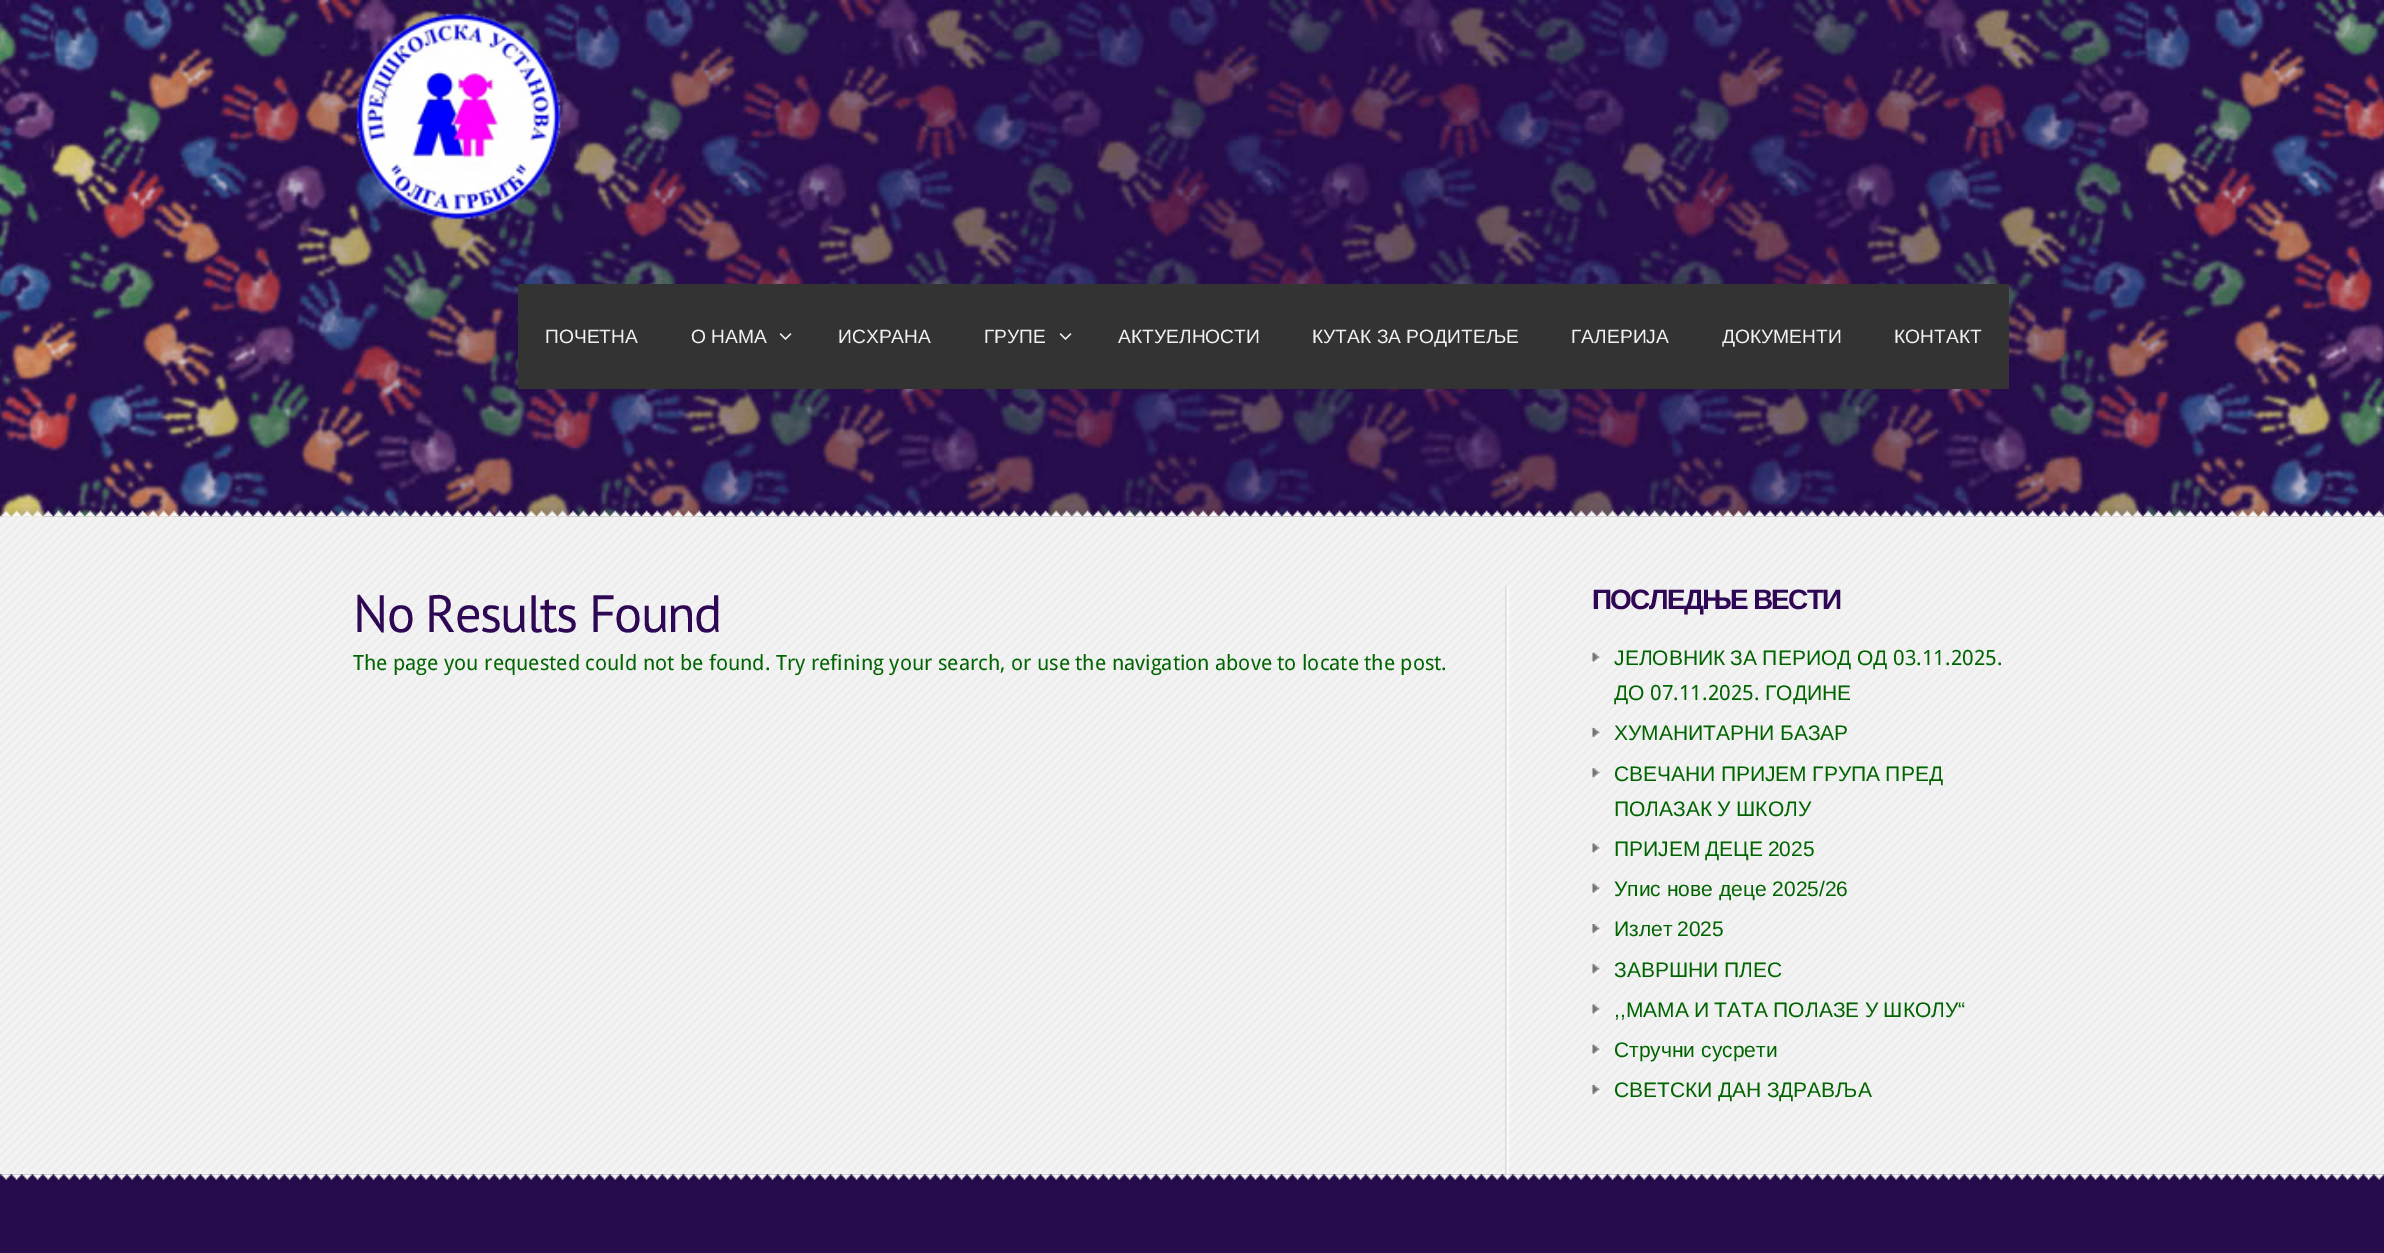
%!PS-Adobe-3.0
%%BoundingBox: 0 0 2384 1253
%%LanguageLevel: 3
%%Pages: 1
%%EndComments
%%BeginProlog
/setink { dup -16 bitshift 255 div exch dup -8 bitshift 255 and 255 div exch 255 and 255 div setrgbcolor } def
/usefont { [ exch dup neg 0 0 3 -1 roll 0 0 ] selectfont } def
/drawimage { 5 dict begin { /h /w /y /x /name } { exch def } forall
  gsave x y translate w h scale
  w h 8 [w 0 0 h 0 0] name (r) file false 3 colorimage grestore end } def
%%EndProlog
%%BeginSetup
<< /PageSize [2384 1253] >> setpagedevice
%%EndSetup
%%Page: 1 1
0 1253 translate 1 -1 scale
4 setmiterlimit
16#260C4D setink
0 0 2384 1253 rectfill
(img1.raw) 0 0 2384 517 drawimage
(img2.raw) 0 507 2384 10 drawimage
(img3.raw) 356 13 205 207 drawimage
16#333333 setink
518 284 1491 105 rectfill
/LiberationSans-Regular 19.25 usefont
16#F1F1F1 setink
545 343 moveto (ПОЧЕТНА) show
691 343 moveto (О НАМА) show
(img4.raw) 779 333 13 7 drawimage
838 343 moveto (ИСХРАНА) show
984 343 moveto (ГРУПЕ) show
(img4.raw) 1059 333 13 7 drawimage
[
    [(АКТУЕЛНОСТИ) 1118 343]
    [(КУТАК ЗА РОДИТЕЉЕ) 1312 343]
    [(ГАЛЕРИЈА) 1571 343]
    [(ДОКУМЕНТИ) 1722 343]
    [(КОНТАКТ) 1894 343]
] { aload pop moveto show } forall
(img5.raw) 0 516 2384 659 drawimage
(img17.raw) 0 1174 2384 7 drawimage
(img6.raw) 1505 586 4 589 drawimage
/PTSans-Regular 52.5 usefont
16#2E0854 setink
353 632 moveto -1.75 0 (No Results Found) ashow
/DroidSans-Regular 21 usefont
16#006400 setink
353 670 moveto (The page you requested could not be found. Try refining your search, or use the navigation above to locate the post.) show
/LiberationSans-Bold 28 usefont
16#2E0854 setink
1592 609 moveto -1.75 0 (ПОСЛЕДЊЕ ВЕСТИ) ashow
(img7.raw) 1592 652 9 11 drawimage
/LiberationSans-Regular 21 usefont
16#006400 setink
1614 665 moveto -0.5 0 32 (ЈЕЛОВНИК ЗА ПЕРИОД ОД) widthshow
/DroidSans-Regular 21 usefont
1893 665 moveto (03.11.2025.) show
/LiberationSans-Regular 21 usefont
1614 700 moveto (ДО) show
/DroidSans-Regular 21 usefont
1650 700 moveto (07.11.2025.) show
/LiberationSans-Regular 21 usefont
1765 700 moveto (ГОДИНЕ) show
(img8.raw) 1592 728 9 11 drawimage
1614 740 moveto (ХУМАНИТАРНИ БАЗАР) show
(img9.raw) 1592 768 9 11 drawimage
1614 781 moveto -0.5 0 32 (СВЕЧАНИ ПРИЈЕМ ГРУПА ПРЕД) widthshow
1614 816 moveto -0.5 0 32 (ПОЛАЗАК У ШКОЛУ) widthshow
(img10.raw) 1592 843 10 11 drawimage
1614 856 moveto -1 0 32 (ПРИЈЕМ ДЕЦЕ 2025) widthshow
(img11.raw) 1592 883 9 11 drawimage
1614 896 moveto (Упис нове деце 2025/26) show
(img12.raw) 1592 924 9 11 drawimage
1614 936 moveto -1 0 32 (Излет 2025) widthshow
(img13.raw) 1592 964 9 11 drawimage
1614 977 moveto (ЗАВРШНИ ПЛЕС) show
(img14.raw) 1592 1004 9 11 drawimage
1614 1017 moveto -0.5 0 32 (,,МАМА И ТАТА ПОЛАЗЕ У ШКОЛУ“) widthshow
(img15.raw) 1592 1044 9 11 drawimage
1614 1057 moveto (Стручни сусрети) show
(img16.raw) 1592 1085 9 11 drawimage
1614 1097 moveto -0.5 0 32 (СВЕТСКИ ДАН ЗДРАВЉА) widthshow
showpage
%%EOF
